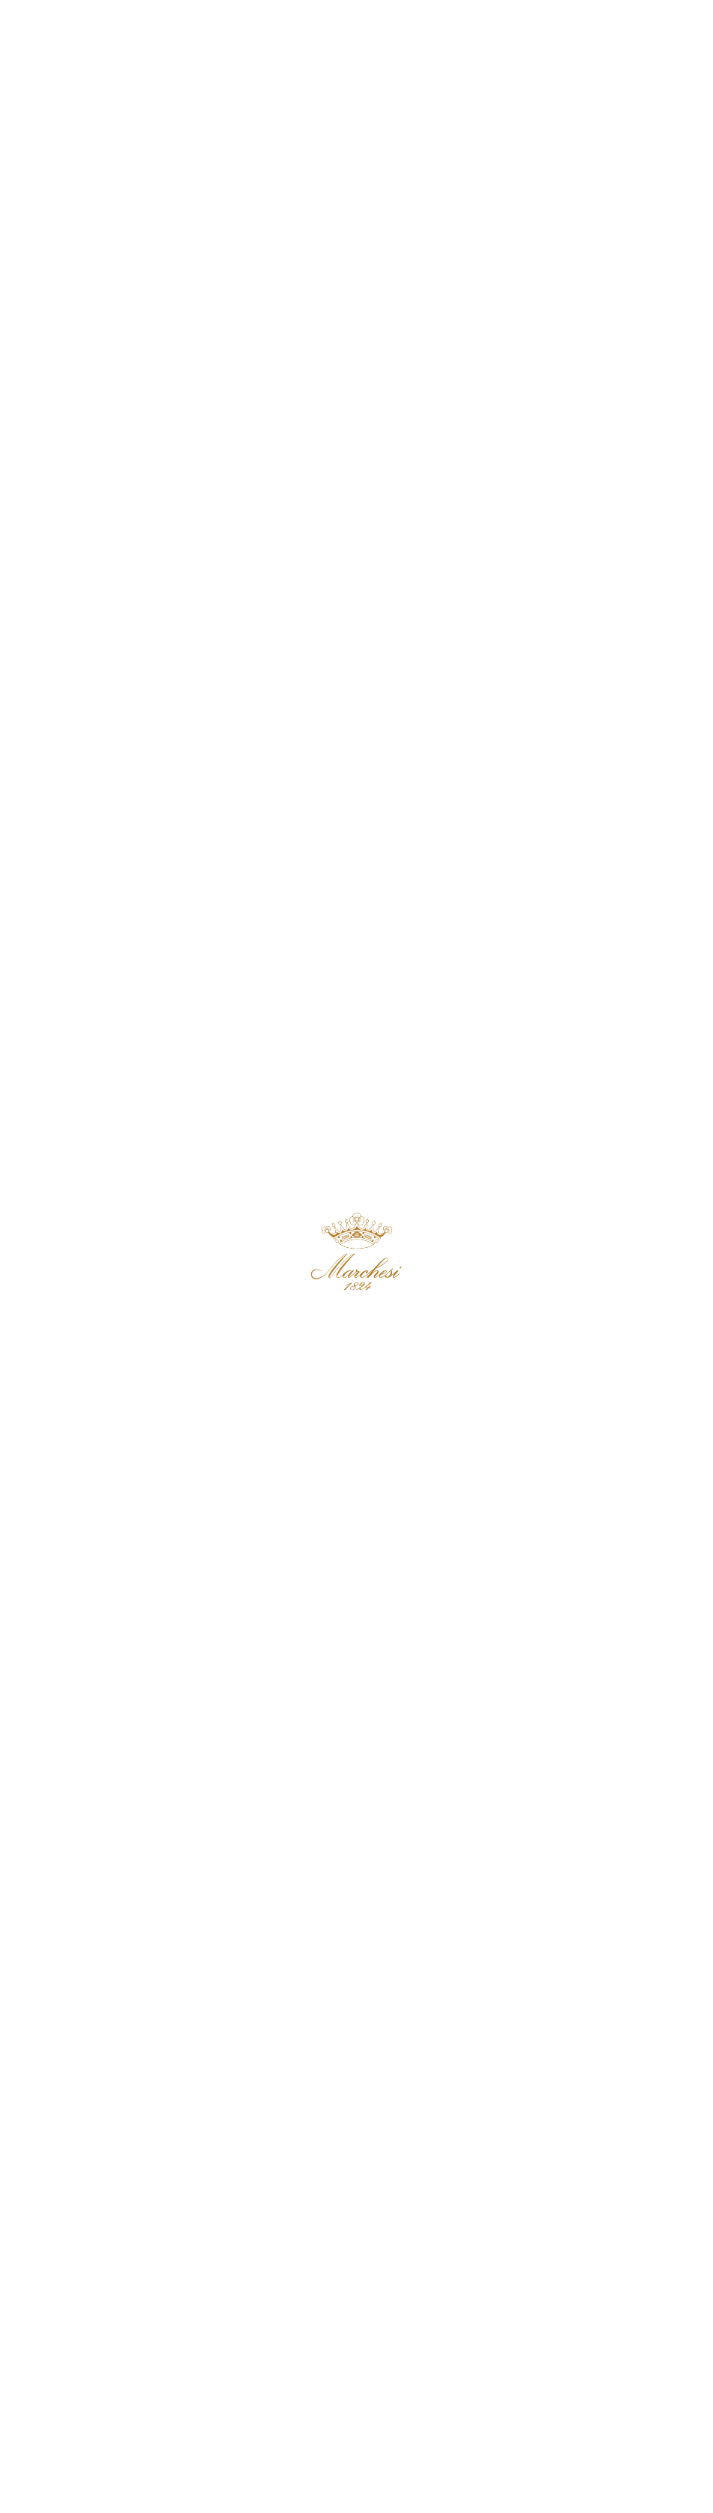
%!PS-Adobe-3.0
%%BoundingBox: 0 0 713 2513
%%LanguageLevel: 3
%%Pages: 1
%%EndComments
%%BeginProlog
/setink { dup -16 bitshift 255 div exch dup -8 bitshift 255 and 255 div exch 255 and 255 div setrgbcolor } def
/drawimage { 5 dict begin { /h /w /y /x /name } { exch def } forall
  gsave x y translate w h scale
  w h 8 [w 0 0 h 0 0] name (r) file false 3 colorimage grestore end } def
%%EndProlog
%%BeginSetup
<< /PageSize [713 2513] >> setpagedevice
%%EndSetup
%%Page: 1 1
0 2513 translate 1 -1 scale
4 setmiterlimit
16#FFFFFF setink
0 0 713 2513 rectfill
(img1.raw) 310 1212 92 79 drawimage
showpage
%%EOF
